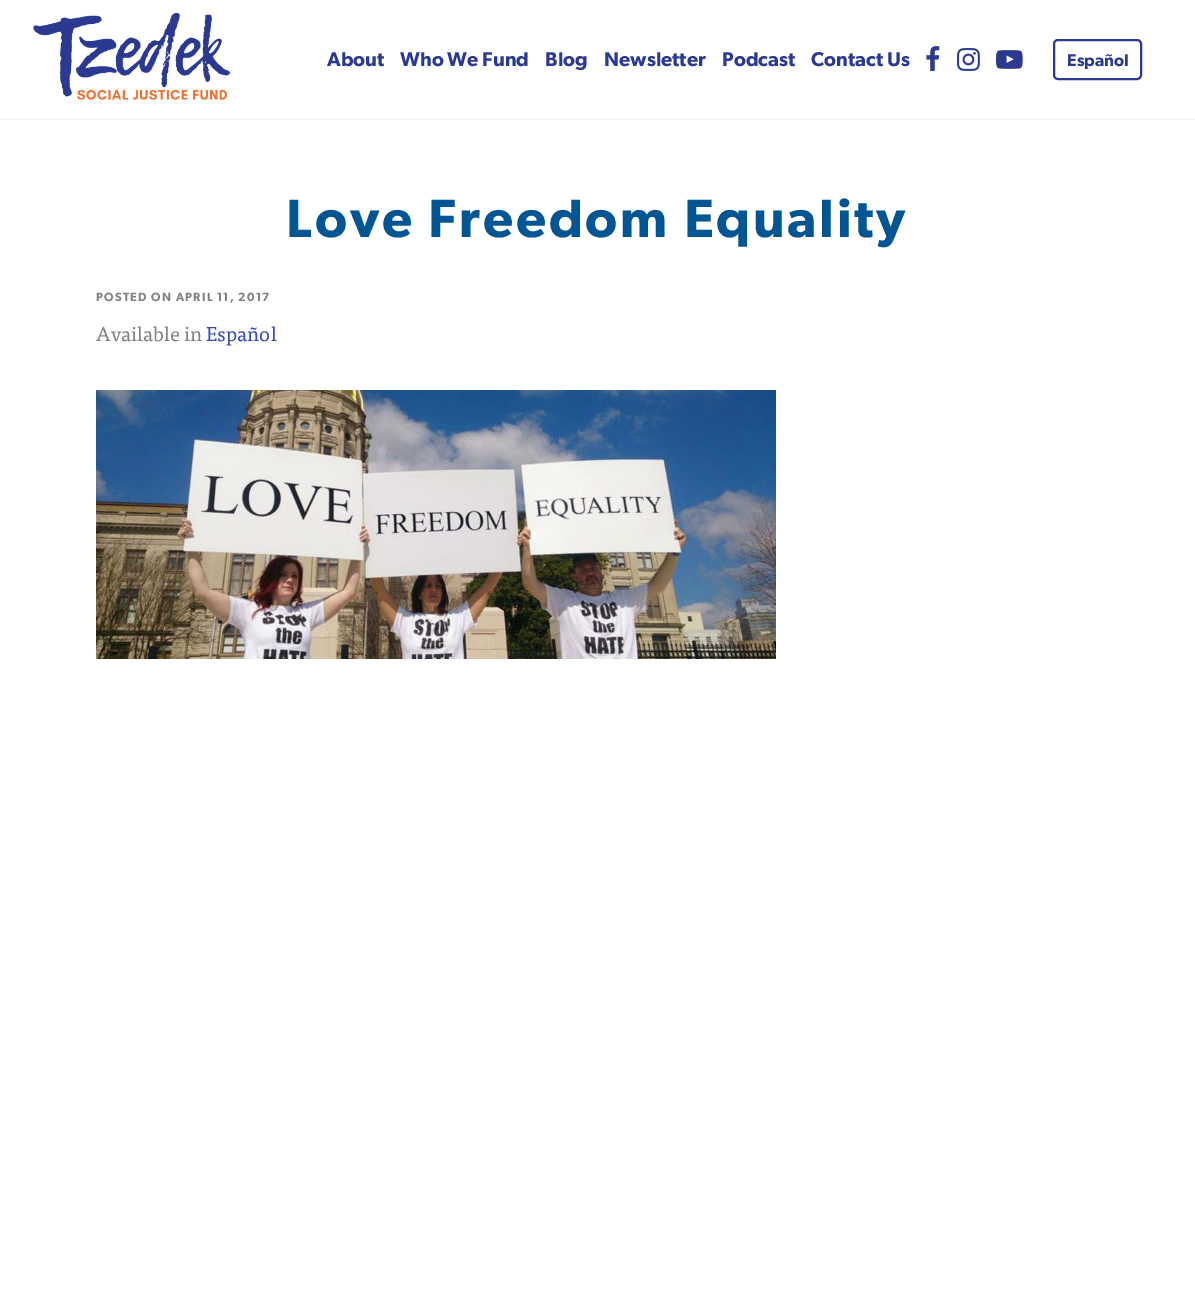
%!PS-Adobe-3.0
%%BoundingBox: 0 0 1195 1299
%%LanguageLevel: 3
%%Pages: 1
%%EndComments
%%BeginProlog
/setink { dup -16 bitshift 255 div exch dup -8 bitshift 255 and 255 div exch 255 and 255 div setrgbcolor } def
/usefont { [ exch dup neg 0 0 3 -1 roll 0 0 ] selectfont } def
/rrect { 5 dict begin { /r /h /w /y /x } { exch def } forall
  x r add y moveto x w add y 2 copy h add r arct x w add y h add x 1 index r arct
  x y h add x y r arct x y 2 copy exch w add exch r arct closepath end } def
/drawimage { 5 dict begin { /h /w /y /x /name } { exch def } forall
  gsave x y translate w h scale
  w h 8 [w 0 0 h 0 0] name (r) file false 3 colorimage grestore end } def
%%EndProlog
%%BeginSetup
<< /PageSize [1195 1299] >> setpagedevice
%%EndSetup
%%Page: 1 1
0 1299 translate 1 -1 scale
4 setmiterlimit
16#FFFFFF setink
0 0 1195 1299 rectfill
16#EFF0F1 setink
0 119 1195 1 rectfill
(img1.raw) 33 12 198 88 drawimage
/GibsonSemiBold-SemiBold 20 usefont
16#2B3990 setink
[
    [(About) 327 66]
    [(Who We Fund) 400 66]
    [(Blog) 545 66]
    [(Newsletter) 604 66]
    [(Podcast) 722 66]
    [(Contact Us) 811 66]
] { aload pop moveto show } forall
(img2.raw) 926 46 14 25 drawimage
(img3.raw) 957 48 23 23 drawimage
(img4.raw) 996 50 27 19 drawimage
2 setlinewidth
1054 40 87 39 4 rrect stroke
/GibsonSemiBold-SemiBold 17 usefont
1067 66 moveto (Español) show
/GibsonSemiBold-SemiBold 54 usefont
16#005592 setink
286 237 moveto 2.7 0 (Love Freedom Equality) ashow
/GibsonSemiBold-SemiBold 12 usefont
16#808285 setink
96 301 moveto 1.2 0 (POSTED ON APRIL 11, 2017) ashow
/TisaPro-Regular 20 usefont
96 341 moveto (Available in) show
16#364FAC setink
206 341 moveto (Español) show
(img5.raw) 96 390 680 269 drawimage
showpage
%%EOF
